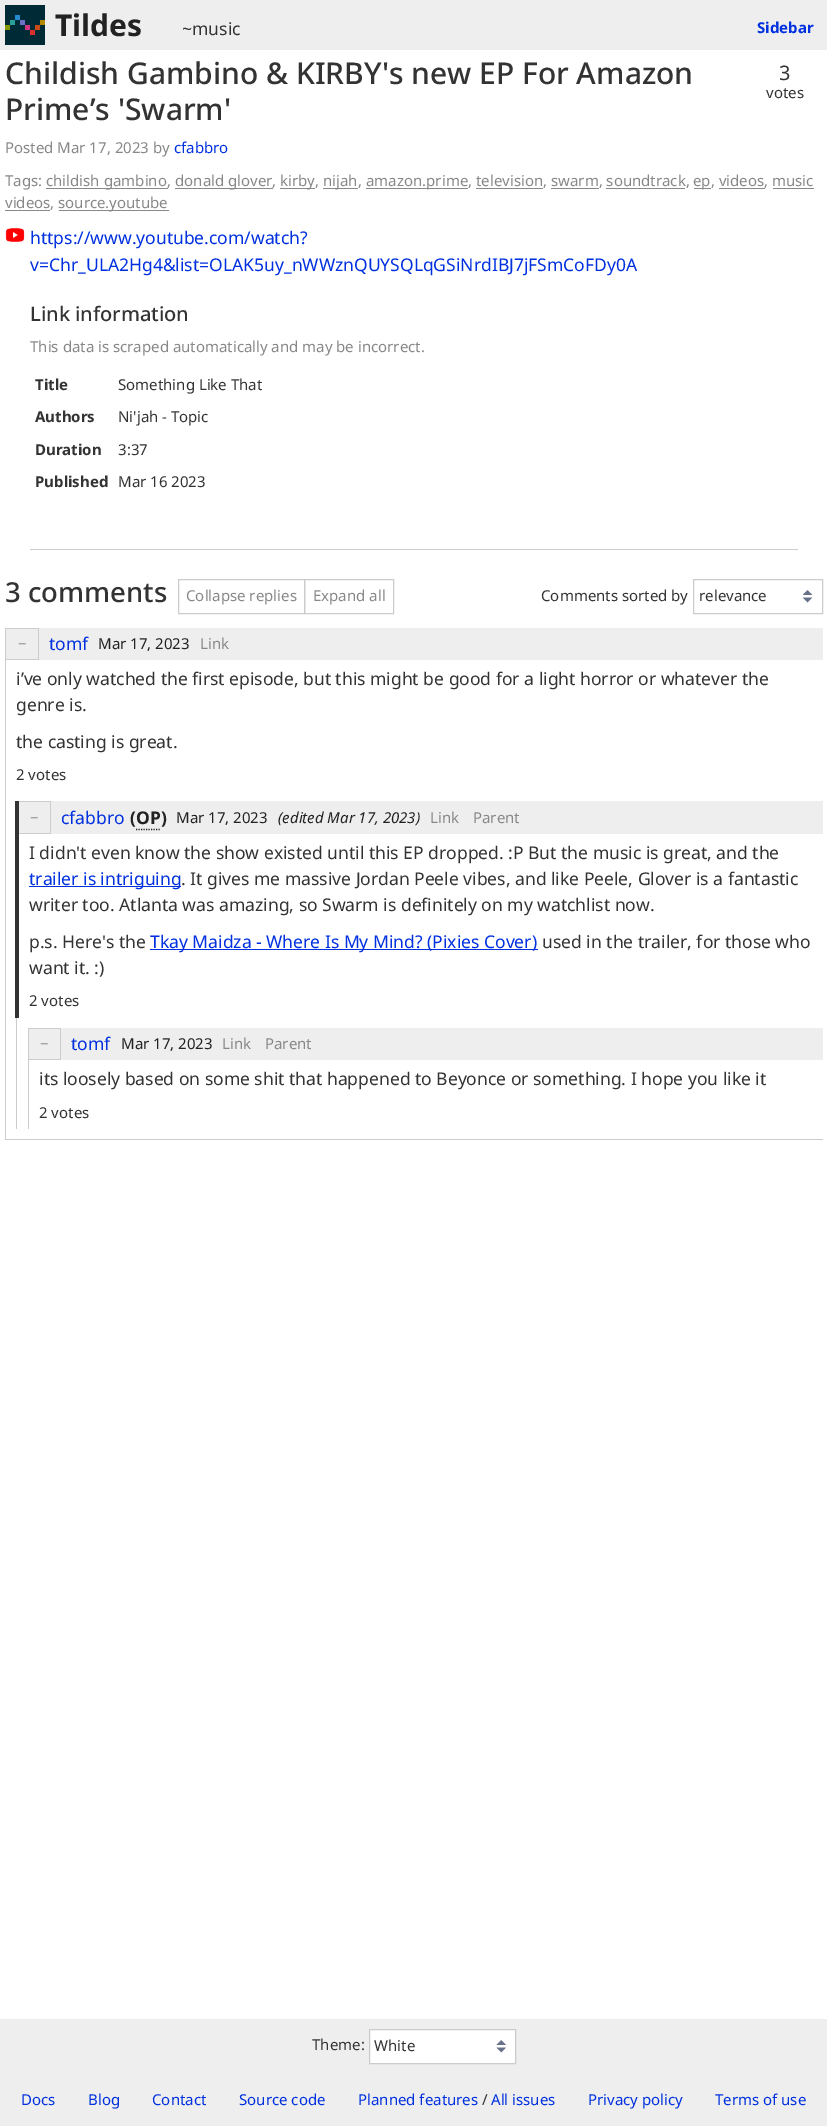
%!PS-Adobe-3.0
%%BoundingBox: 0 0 827 2126
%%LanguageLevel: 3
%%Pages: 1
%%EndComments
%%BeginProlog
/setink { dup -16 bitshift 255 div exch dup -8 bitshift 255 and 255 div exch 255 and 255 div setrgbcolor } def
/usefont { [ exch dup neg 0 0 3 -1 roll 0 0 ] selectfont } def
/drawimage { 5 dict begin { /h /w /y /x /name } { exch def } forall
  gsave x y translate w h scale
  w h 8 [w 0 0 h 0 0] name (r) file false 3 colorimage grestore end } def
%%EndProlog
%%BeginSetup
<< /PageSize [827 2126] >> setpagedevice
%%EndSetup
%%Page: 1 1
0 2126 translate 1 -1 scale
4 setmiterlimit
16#EEEEEE setink
0 0 827 2126 rectfill
(img1.raw) 5 5 40 40 drawimage
/NotoSans-Bold 30 usefont
16#222222 setink
55 36 moveto (Tildes) show
/NotoSans-Regular 17.5 usefont
16#333333 setink
182 35 moveto (~music) show
/NotoSans-Bold 15 usefont
16#0030E0 setink
757 33 moveto (Sidebar) show
16#FFFFFF setink
0 50 827 1969 rectfill
/NotoSans-Medium 30 usefont
16#333333 setink
5 84 moveto (Childish Gambino & KIRBY's new EP For Amazon) show
5 120 moveto (Prime’s 'Swarm') show
/NotoSans-Regular 20 usefont
779 80 moveto (3) show
/NotoSans-Regular 15 usefont
766 98 moveto (votes) show
16#888888 setink
5 153 moveto (Posted Mar 17, 2023 by) show
16#0030E0 setink
174 153 moveto (cfabbro) show
16#888888 setink
5 186 moveto (Tags:) show
46 188 122 1 rectfill
46 186 moveto (childish gambino,) show
175 188 98 1 rectfill
175 186 moveto (donald glover,) show
280 188 35 1 rectfill
280 186 moveto (kirby,) show
323 188 35 1 rectfill
323 186 moveto (nijah,) show
366 188 102 1 rectfill
366 186 moveto (amazon.prime, television, swarm, soundtrack,) show
694 188 17 1 rectfill
693 186 moveto (ep, videos, music) show
[
    [476 188 67 1 16#888888]
    [551 188 48 1 16#888888]
    [606 188 79 1 16#888888]
    [719 188 46 1 16#888888]
] { aload pop setink rectfill } forall
5 208 moveto (videos,) show
[
    [773 188 41 1 16#888888]
    [5 210 45 1 16#888888]
    [59 210 110 1 16#888888]
] { aload pop setink rectfill } forall
58 208 moveto (source.youtube) show
(img2.raw) 5 228 20 14 drawimage
/NotoSans-Regular 17.5 usefont
16#0030E0 setink
30 244 moveto (https://www.youtube.com/watch?) show
30 271 moveto (v=Chr_ULA2Hg4&list=OLAK5uy_nWWznQUYSQLqGSiNrdIBJ7jFSmCoFDy0A) show
/NotoSans-Medium 20 usefont
16#333333 setink
30 321 moveto (Link information) show
/NotoSans-Regular 15 usefont
16#888888 setink
30 352 moveto (This data is scraped automatically and may be incorrect.) show
/NotoSans-Bold 15 usefont
16#333333 setink
35 390 moveto (Title) show
/NotoSans-Regular 15 usefont
118 390 moveto (Something Like That) show
/NotoSans-Bold 15 usefont
35 422 moveto (Authors) show
/NotoSans-Regular 15 usefont
118 422 moveto (Ni'jah - Topic) show
/NotoSans-Bold 15 usefont
35 455 moveto (Duration) show
/NotoSans-Regular 15 usefont
118 455 moveto (3:37) show
/NotoSans-Bold 15 usefont
35 487 moveto (Published) show
/NotoSans-Regular 15 usefont
118 487 moveto (Mar 16 2023) show
16#CCCCCC setink
30 549 768 1 rectfill
/NotoSans-Medium 27.5 usefont
16#333333 setink
5 602 moveto (3 comments) show
16#CCCCCC setink
178.5 579.5 126 34 rectstroke
/NotoSans-Regular 15 usefont
16#888888 setink
186 601 moveto (Collapse replies) show
16#CCCCCC setink
304.5 579.5 89 34 rectstroke
16#888888 setink
313 601 moveto (Expand all) show
16#333333 setink
541 601 moveto (Comments sorted by) show
(img3.raw) 803 590 10 13 drawimage
16#CCCCCC setink
693.5 579.5 129 34 rectstroke
16#333333 setink
699 601 moveto (relevance) show
[
    [5 1139 818 1 16#CCCCCC]
    [5 628 1 512 16#CCCCCC]
    [6 628 817 32 16#EEEEEE]
    [6 628 33 1 16#CCCCCC]
    [38 628 1 32 16#CCCCCC]
    [6 659 33 1 16#CCCCCC]
] { aload pop setink rectfill } forall
16#888888 setink
18 649 moveto (−) show
/NotoSans-Regular 17.5 usefont
16#0030E0 setink
49 650 moveto (tomf) show
/NotoSans-Regular 15 usefont
16#222222 setink
98 649 moveto (Mar 17, 2023) show
16#888888 setink
200 649 moveto (Link) show
/NotoSans-Regular 17.5 usefont
16#333333 setink
[
    [(i’ve only watched the first episode, but this might be good for a light horror or whatever the) 16 685]
    [(genre is.) 16 711]
    [(the casting is great.) 16 748]
] { aload pop moveto show } forall
/NotoSans-Regular 15 usefont
16 780 moveto (2 votes) show
[
    [16 1018 1 111 16#CCCCCC]
    [15 801 4 217 16#333333]
    [19 801 804 33 16#EEEEEE]
    [19 801 32 1 16#CCCCCC]
    [50 801 1 33 16#CCCCCC]
    [19 833 32 1 16#CCCCCC]
] { aload pop setink rectfill } forall
16#888888 setink
30 823 moveto (−) show
/NotoSans-Regular 17.5 usefont
16#0030E0 setink
61 824 moveto (cfabbro) show
/NotoSans-Bold 17.5 usefont
16#222222 setink
130 824 moveto (\(OP\)) show
1.2 setlinewidth
[1.25 1.25] 0 setdash
136 829.5 moveto 160 829.5 lineto stroke
/NotoSans-Regular 15 usefont
176 823 moveto (Mar 17, 2023) show
/NotoSans-Italic 15 usefont
278 823 moveto (\(edited Mar 17, 2023\)) show
/NotoSans-Regular 15 usefont
16#888888 setink
430 823 moveto (Link) show
473 823 moveto (Parent) show
/NotoSans-Regular 17.5 usefont
16#333333 setink
29 859 moveto (I didn't even know the show existed until this EP dropped. :P But the music is great, and the) show
16#0030E0 setink
29 886 152 1 rectfill
29 885 moveto (trailer is intriguing) show
16#333333 setink
[
    [(. It gives me massive Jordan Peele vibes, and like Peele, Glover is a fantastic) 181 885]
    [(writer too. Atlanta was amazing, so Swarm is definitely on my watchlist now.) 29 911]
    [(p.s. Here's the) 29 948]
] { aload pop moveto show } forall
16#0030E0 setink
150 949 388 1 rectfill
150 948 moveto (Tkay Maidza - Where Is My Mind? \(Pixies Cover\)) show
16#333333 setink
542 948 moveto (used in the trailer, for those who) show
29 974 moveto (want it. :\)) show
/NotoSans-Regular 15 usefont
29 1006 moveto (2 votes) show
[
    [28 1028 1 101 16#CCCCCC]
    [29 1028 794 32 16#EEEEEE]
    [29 1028 32 1 16#CCCCCC]
    [60 1028 1 32 16#CCCCCC]
    [29 1059 32 1 16#CCCCCC]
] { aload pop setink rectfill } forall
16#888888 setink
40 1049 moveto (−) show
/NotoSans-Regular 17.5 usefont
16#0030E0 setink
71 1050 moveto (tomf) show
/NotoSans-Regular 15 usefont
16#222222 setink
121 1049 moveto (Mar 17, 2023) show
16#888888 setink
222 1049 moveto (Link) show
265 1049 moveto (Parent) show
/NotoSans-Regular 17.5 usefont
16#333333 setink
39 1085 moveto (its loosely based on some shit that happened to Beyonce or something. I hope you like it) show
/NotoSans-Regular 15 usefont
39 1118 moveto (2 votes) show
312 2050 moveto (Theme:) show
16#FFFFFF setink
370 2030 145 33 rectfill
(img4.raw) 496 2040 10 13 drawimage
16#CCCCCC setink
1 setlinewidth
[] 0 setdash
369.5 2029.5 146 34 rectstroke
16#333333 setink
374 2051 moveto (White) show
16#0030E0 setink
[
    [(Docs) 21 2105]
    [(Blog) 88 2105]
    [(Contact) 152 2105]
    [(Source code) 239 2105]
    [(Planned features) 358 2105]
] { aload pop moveto show } forall
16#333333 setink
482 2105 moveto (/) show
16#0030E0 setink
[
    [(All issues) 491 2105]
    [(Privacy policy) 588 2105]
    [(Terms of use) 715 2105]
] { aload pop moveto show } forall
showpage
%%EOF
